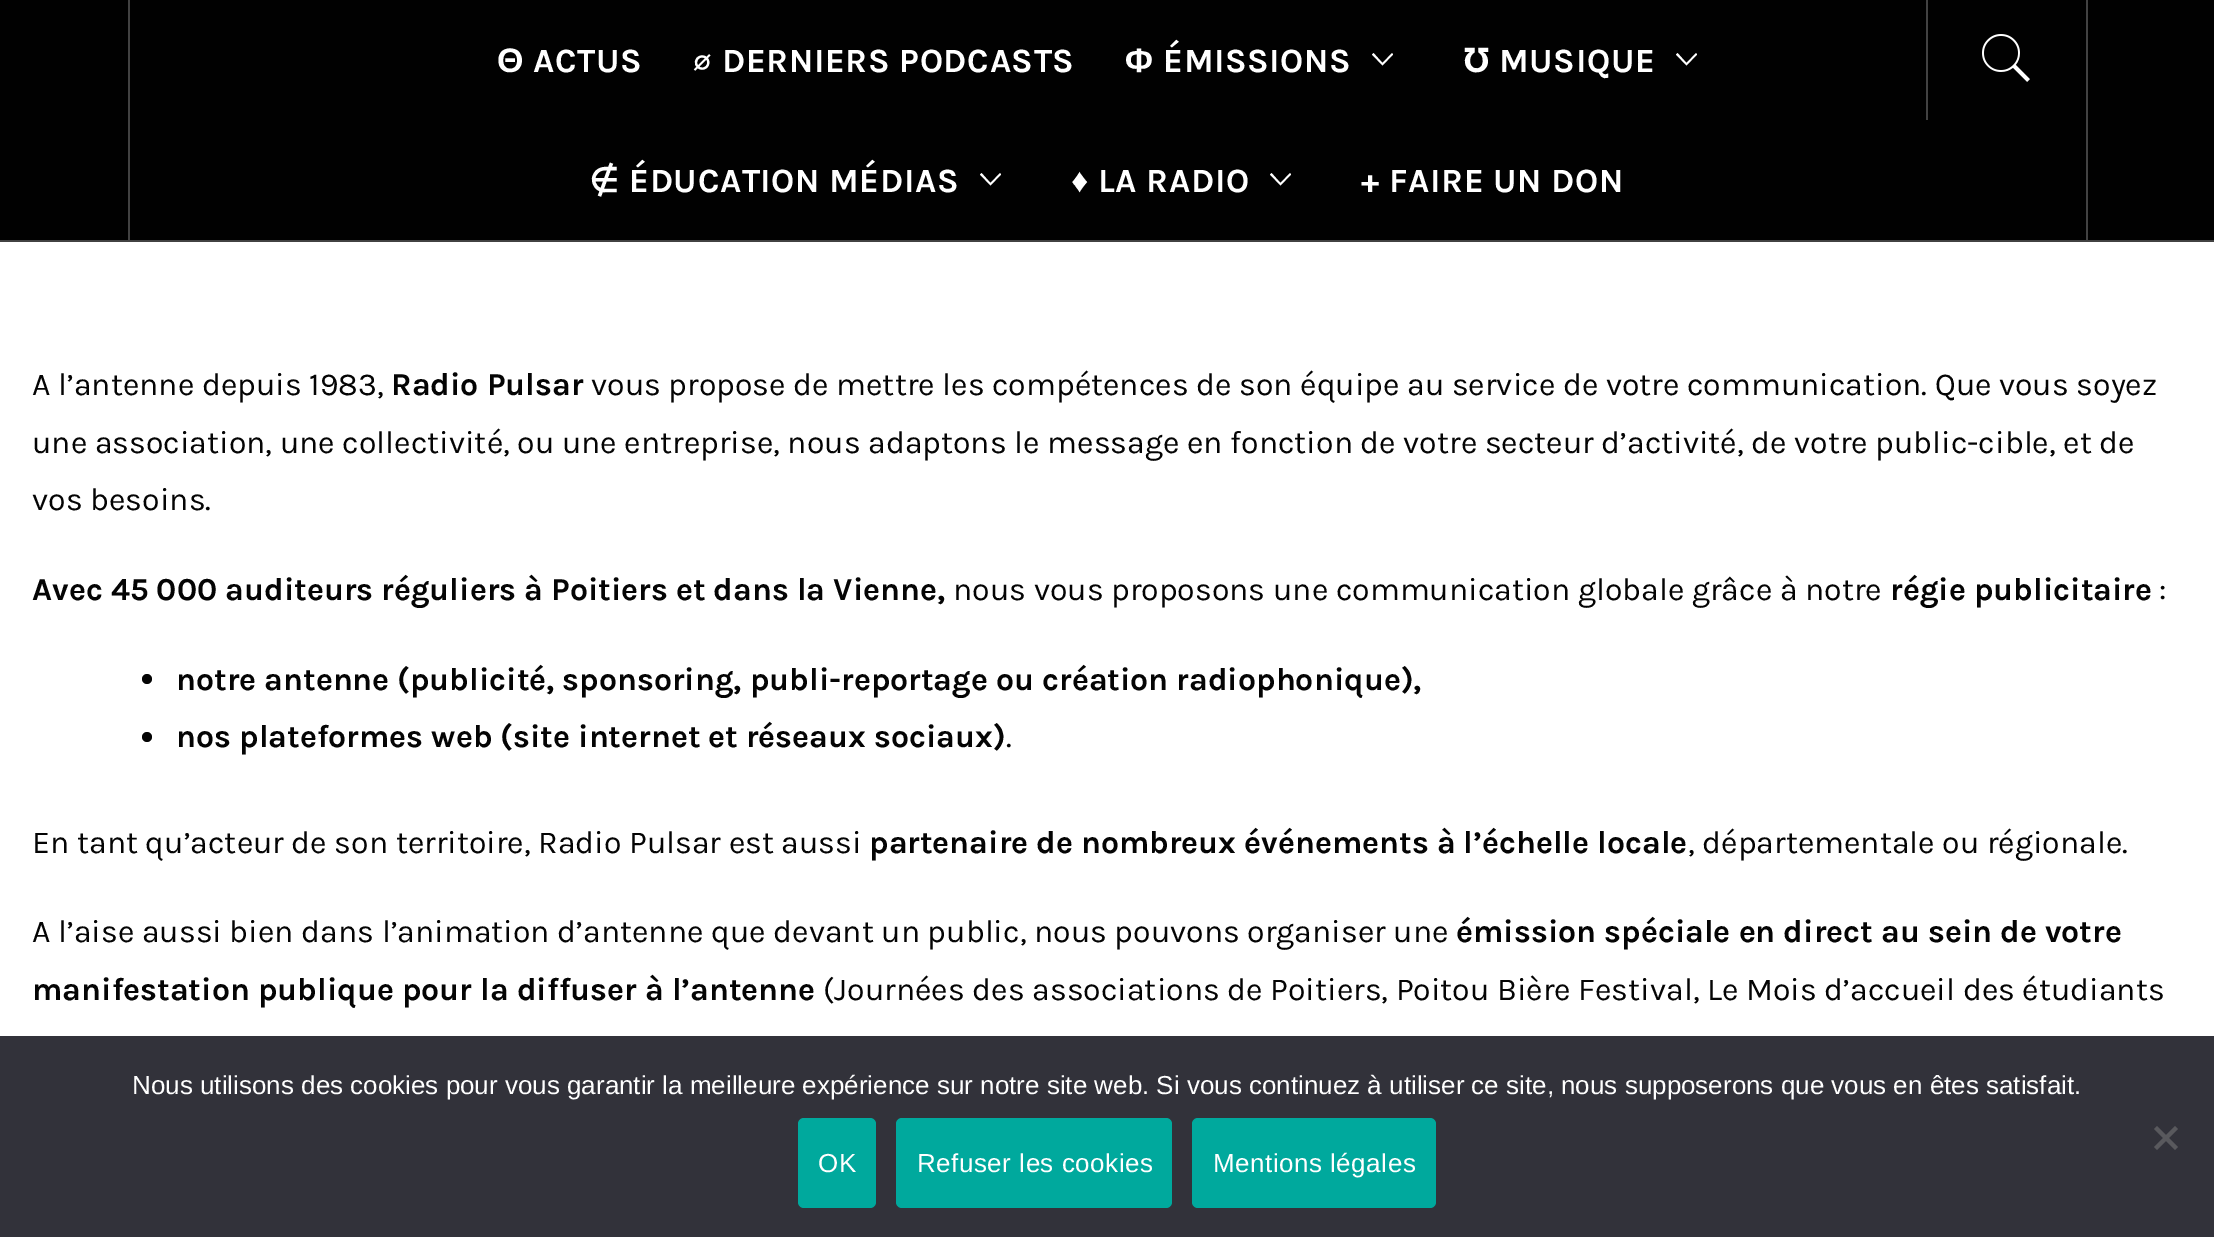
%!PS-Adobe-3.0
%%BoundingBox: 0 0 2214 1237
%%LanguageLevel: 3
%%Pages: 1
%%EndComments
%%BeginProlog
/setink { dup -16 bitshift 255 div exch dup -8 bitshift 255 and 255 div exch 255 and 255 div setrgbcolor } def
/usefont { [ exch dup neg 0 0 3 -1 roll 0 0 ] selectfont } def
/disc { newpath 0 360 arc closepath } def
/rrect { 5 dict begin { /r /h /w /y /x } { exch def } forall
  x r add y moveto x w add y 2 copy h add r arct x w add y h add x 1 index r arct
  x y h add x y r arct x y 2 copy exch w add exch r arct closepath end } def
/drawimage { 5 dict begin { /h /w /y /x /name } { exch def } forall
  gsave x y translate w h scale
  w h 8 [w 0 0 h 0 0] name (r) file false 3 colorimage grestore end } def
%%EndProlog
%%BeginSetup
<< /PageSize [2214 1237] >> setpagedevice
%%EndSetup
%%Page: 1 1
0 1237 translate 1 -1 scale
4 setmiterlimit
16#FFFFFF setink
0 0 2214 1237 rectfill
[
    [0 0 2214 240 16#010101]
    [0 240 2214 2 16#424242]
    [2086 0 2 240 16#424242]
    [128 0 2 240 16#424242]
] { aload pop setink rectfill } forall
/LiberationSans-Bold 34 usefont
16#FFFFFF setink
497 72 moveto 0.6 0 (Θ) ashow
/Karla-Bold 34 usefont
533 72 moveto 0.6 0 (ACTUS) ashow
/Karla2-Bold 34 usefont
692 72 moveto 0.6 0 (∅) ashow
/Karla-Bold 34 usefont
722 72 moveto 0.6 0 (DERNIERS PODCASTS) ashow
/LiberationSans-Bold 34 usefont
1125 72 moveto 0.6 0 (Φ) ashow
/Karla-Bold 34 usefont
1163 72 moveto 0.6 0 (ÉMISSIONS) ashow
1392 53 moveto 1393 54.5 lineto 1382.5 65.5 lineto 1372 54.5 lineto 1373.5 53 lineto 1382.5 63 lineto closepath fill
/NotoSans-Bold 34 usefont
1463 72 moveto 0.6 0 (℧) ashow
/Karla-Bold 34 usefont
1499 72 moveto 0.6 0 (MUSIQUE) ashow
1696 53 moveto 1697 54.5 lineto 1686.5 65.5 lineto 1676 54.5 lineto 1677.5 53 lineto 1686.5 63 lineto closepath fill
/DejaVuSans-Bold 34 usefont
589 192 moveto 0.6 0 (∉) ashow
/Karla-Bold 34 usefont
629 192 moveto 0.6 0 (ÉDUCATION MÉDIAS) ashow
1000 173 moveto 1001 174.5 lineto 990.5 185.5 lineto 980 174.5 lineto 981.5 173 lineto 990.5 183 lineto closepath fill
/LiberationSans-Bold 34 usefont
1071 192 moveto 0.6 0 (♦) ashow
/Karla-Bold 34 usefont
1098 192 moveto 0.6 0 (LA RADIO) ashow
1290 173 moveto 1291 174.5 lineto 1280.5 185.5 lineto 1270 174.5 lineto 1271.5 173 lineto 1280.5 183 lineto closepath fill
1361 192 moveto 0.6 0 (+ FAIRE UN DON) ashow
16#424242 setink
1926 0 2 120 rectfill
(img1.raw) 1982 34 48 48 drawimage
/Karla-Regular 32 usefont
16#040404 setink
32 395 moveto (A l’antenne depuis 1983,) show
/Karla-Bold 32 usefont
391 395 moveto (Radio Pulsar) show
/Karla-Regular 32 usefont
[
    [(vous propose de mettre les compétences de son équipe au service de votre communication. Que vous soyez) 591 395]
    [(une association, une collectivité, ou une entreprise, nous adaptons le message en fonction de votre secteur d’activité, de votre public-cible, et de) 32 453]
    [(vos besoins.) 32 510]
] { aload pop moveto show } forall
/Karla-Bold 32 usefont
32 600 moveto (Avec 45 000 auditeurs réguliers à Poitiers et dans la Vienne,) show
/Karla-Regular 32 usefont
953 600 moveto (nous vous proposons une communication globale grâce à notre) show
/Karla-Bold 32 usefont
1890 600 moveto (régie publicitaire) show
/Karla-Regular 32 usefont
2159 600 moveto (:) show
147 679 5 disc fill
/Karla-Bold 32 usefont
176 690 moveto (notre antenne) show
397 690 moveto (\(publicité, sponsoring, publi-reportage ou création radiophonique\),) show
147 737 5 disc fill
176 747 moveto (nos plateformes web \(site internet et réseaux sociaux\)) show
/Karla-Regular 32 usefont
1006 747 moveto (.) show
32 853 moveto (En tant qu’acteur de son territoire, Radio Pulsar est aussi) show
/Karla-Bold 32 usefont
869 853 moveto (partenaire de nombreux événements à l’échelle locale) show
/Karla-Regular 32 usefont
1688 853 moveto (, départementale ou régionale.) show
32 942 moveto (A l’aise aussi bien dans l’animation d’antenne que devant un public, nous pouvons organiser une) show
/Karla-Bold 32 usefont
1456 942 moveto (émission spéciale en direct au sein de votre) show
32 1000 moveto (manifestation publique pour la diffuser à l’antenne) show
/Karla-Regular 32 usefont
823 1000 moveto (\(Journées des associations de Poitiers, Poitou Bière Festival, Le Mois d’accueil des étudiants) show
16#32323A setink
0 1036 2214 201 rectfill
/LiberationSans-Regular 26 usefont
16#FFFFFF setink
132 1094 moveto (Nous utilisons des cookies pour vous garantir la meilleure expérience sur notre site web. Si vous continuez à utiliser ce site, nous supposerons que vous en êtes satisfait.) show
16#59595D setink
2175 1126 moveto 2178 1129 lineto 2157 1150 lineto 2154 1147 lineto closepath fill
2154 1129 moveto 2157 1126 lineto 2178 1147 lineto 2175 1150 lineto closepath fill
16#00A99D setink
798 1118 78 90 6 rrect fill
16#FFFFFF setink
818 1172 moveto 0.5 0 (OK) ashow
16#00A99D setink
896 1118 276 90 6 rrect fill
16#FFFFFF setink
917 1172 moveto 0.5 0 (Refuser les cookies) ashow
16#00A99D setink
1192 1118 244 90 6 rrect fill
16#FFFFFF setink
1213 1172 moveto 0.5 0 (Mentions légales) ashow
showpage
%%EOF
